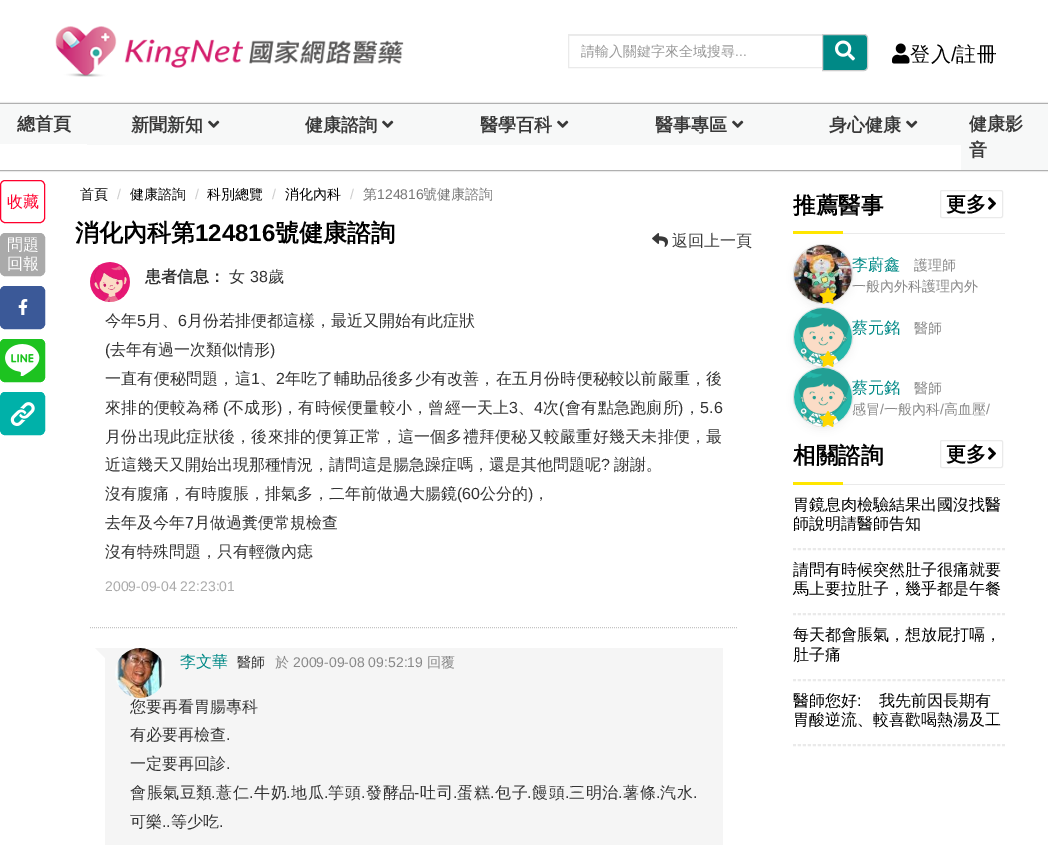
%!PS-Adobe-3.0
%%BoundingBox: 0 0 1048 845
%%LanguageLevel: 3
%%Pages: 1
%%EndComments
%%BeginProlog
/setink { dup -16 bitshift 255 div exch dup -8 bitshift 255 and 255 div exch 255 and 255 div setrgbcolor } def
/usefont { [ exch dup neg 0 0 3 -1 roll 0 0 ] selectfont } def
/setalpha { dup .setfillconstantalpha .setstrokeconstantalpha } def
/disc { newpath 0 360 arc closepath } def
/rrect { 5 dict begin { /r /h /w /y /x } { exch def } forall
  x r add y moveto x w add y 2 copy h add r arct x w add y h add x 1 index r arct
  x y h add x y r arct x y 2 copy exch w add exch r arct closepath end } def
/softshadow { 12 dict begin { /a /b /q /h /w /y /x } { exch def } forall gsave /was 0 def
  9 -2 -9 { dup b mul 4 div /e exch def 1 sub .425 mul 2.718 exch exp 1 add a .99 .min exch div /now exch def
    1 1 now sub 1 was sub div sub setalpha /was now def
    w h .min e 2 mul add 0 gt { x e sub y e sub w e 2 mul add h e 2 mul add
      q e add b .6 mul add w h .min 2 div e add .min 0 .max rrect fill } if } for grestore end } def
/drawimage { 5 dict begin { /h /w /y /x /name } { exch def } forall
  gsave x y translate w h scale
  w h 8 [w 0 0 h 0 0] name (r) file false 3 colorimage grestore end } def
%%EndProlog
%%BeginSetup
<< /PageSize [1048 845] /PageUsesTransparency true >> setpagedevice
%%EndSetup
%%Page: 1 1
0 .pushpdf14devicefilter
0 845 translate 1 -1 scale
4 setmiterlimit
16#FFFFFF setink
0 0 1048 845 rectfill
(img1.raw) 55 26 349 51 drawimage
16#ECECEC setink
569 35 253 1 rectfill
16#EAEAEA setink
568.5 34.5 254 33 rectstroke
/WenQuanYiZenHei-Medium 14 usefont
16#999999 setink
581 56 moveto (請輸入關鍵字來全域搜尋) show
/LiberationSans-Regular 14 usefont
735 56 moveto (...) show
16#008986 setink
822.5 34.5 moveto 864 34.5 lineto 866 34.5 867.5 36 867.5 38 curveto 867.5 67 lineto 867.5 69 866 70.5 864 70.5 curveto 822.5 70.5 lineto closepath gsave fill grestore
16#CCCCCC setink
stroke
(img2.raw) 835 40 20 21 drawimage
(img3.raw) 892 43 18 21 drawimage
/WenQuanYiZenHei-Medium 20 usefont
16#000000 setink
910 61 moveto 0.5 0 (登入) ashow
/LiberationSans-Regular 20 usefont
951 61 moveto 0.5 0 (/) ashow
/WenQuanYiZenHei-Medium 20 usefont
956 61 moveto 0.5 0 (註冊) ashow
gsave
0 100 moveto 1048 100 lineto 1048 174 lineto 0 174 lineto closepath 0 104 moveto 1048 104 lineto 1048 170 lineto 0 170 lineto closepath eoclip newpath
0 104 1048 66 0 1 1 softshadow
grestore
16#F7F8F8 setink
0 104 87 40 rectfill
/WenQuanYiZenHei-Bold 18 usefont
16#393939 setink
17 130 moveto (總首頁) show
16#F7F8F8 setink
87 104 874 41 rectfill
16#393939 setink
131 131 moveto (新聞新知) show
(img4.raw) 208 120 12 8 drawimage
305 131 moveto (健康諮詢) show
(img4.raw) 382 120 12 8 drawimage
480 131 moveto (醫學百科) show
(img4.raw) 557 120 12 8 drawimage
655 131 moveto (醫事專區) show
(img4.raw) 732 120 12 8 drawimage
829 131 moveto (身心健康) show
(img4.raw) 906 120 12 8 drawimage
16#F7F8F8 setink
961 104 87 66 rectfill
16#393939 setink
969 130 moveto (健康影) show
969 156 moveto (音) show
16#FF002D setink
0.5 180.5 44 42 4.5 rrect stroke
/WenQuanYiZenHei-Medium 16 usefont
7 207 moveto (收藏) show
16#AAAAAA setink
0.5 233.5 44 42 4.5 rrect gsave fill grestore
stroke
16#FFFFFF setink
7 250 moveto (問題) show
7 269 moveto (回報) show
16#3B5998 setink
0.5 286.5 44 42 4.5 rrect gsave fill grestore
stroke
(img5.raw) 18 299 10 16 drawimage
16#1DC320 setink
0 339 45 43 5 rrect fill
(img6.raw) 5 344 35 32 drawimage
0.5 339.5 44 42 4.5 rrect stroke
(img7.raw) 1 392 43 43 drawimage
16#00B1A9 setink
0.5 392.5 44 42 4.5 rrect stroke
/WenQuanYiZenHei-Medium 14 usefont
16#000000 setink
80 199 moveto (首頁) show
/LiberationSans-Regular 14 usefont
16#CCCCCC setink
117 199 moveto (/) show
/WenQuanYiZenHei-Medium 14 usefont
16#000000 setink
130 199 moveto (健康諮詢) show
/LiberationSans-Regular 14 usefont
16#CCCCCC setink
195 199 moveto (/) show
/WenQuanYiZenHei-Medium 14 usefont
16#000000 setink
207 199 moveto (科別總覽) show
/LiberationSans-Regular 14 usefont
16#CCCCCC setink
272 199 moveto (/) show
/WenQuanYiZenHei-Medium 14 usefont
16#000000 setink
285 199 moveto (消化內科) show
/LiberationSans-Regular 14 usefont
16#CCCCCC setink
350 199 moveto (/) show
/WenQuanYiZenHei-Medium 14 usefont
16#777777 setink
363 199 moveto (第) show
/LiberationSans-Regular 14 usefont
377 199 moveto (124816) show
/WenQuanYiZenHei-Medium 14 usefont
423 199 moveto (號健康諮詢) show
/WenQuanYiZenHei-Bold 24 usefont
16#000000 setink
75 241 moveto (消化內科第) show
/LiberationSans-Bold 24 usefont
195 241 moveto (124816) show
/WenQuanYiZenHei-Bold 24 usefont
275 241 moveto (號健康諮詢) show
(img8.raw) 652 233 16 14 drawimage
/WenQuanYiZenHei-Medium 16 usefont
16#393939 setink
672 246 moveto (返回上一頁) show
16#C4C4C4 setink
[1 1] 0 setdash
90 627.5 moveto 738 627.5 lineto stroke
(img9.raw) 90 262 40 40 drawimage
/WenQuanYiZenHei-Bold 16 usefont
16#333333 setink
145 282 moveto (患者信息：) show
/WenQuanYiZenHei-Medium 16 usefont
229 282 moveto (女) show
/LiberationSans-Regular 16 usefont
250 282 moveto (38) show
/WenQuanYiZenHei-Medium 16 usefont
268 282 moveto (歲) show
105 326 moveto (今年) show
/LiberationSans-Regular 16 usefont
137 326 moveto (5) show
/WenQuanYiZenHei-Medium 16 usefont
146 326 moveto (月、) show
/LiberationSans-Regular 16 usefont
178 326 moveto (6) show
/WenQuanYiZenHei-Medium 16 usefont
187 326 moveto (月份若排便都這樣，最近又開始有此症狀) show
/LiberationSans-Regular 16 usefont
105 355 moveto (\() show
/WenQuanYiZenHei-Medium 16 usefont
110 355 moveto (去年有過一次類似情形) show
/LiberationSans-Regular 16 usefont
270 355 moveto (\)) show
/WenQuanYiZenHei-Medium 16 usefont
105 384 moveto 0.2 0 (一直有便秘問題，這) ashow
/LiberationSans-Regular 16 usefont
251 384 moveto 0.2 0 (1) ashow
/WenQuanYiZenHei-Medium 16 usefont
260 384 moveto 0.2 0 (、) ashow
/LiberationSans-Regular 16 usefont
276 384 moveto 0.2 0 (2) ashow
/WenQuanYiZenHei-Medium 16 usefont
285 384 moveto 0.2 0 (年吃了輔助品後多少有改善，在五月份時便秘較以前嚴重，後) ashow
105 413 moveto 0.25 0 (來排的便較為稀) ashow
/LiberationSans-Regular 16 usefont
223 413 moveto 0.25 0 (\() ashow
/WenQuanYiZenHei-Medium 16 usefont
228 413 moveto 0.25 0 (不成形) ashow
/LiberationSans-Regular 16 usefont
277 413 moveto 0.25 0 (\)) ashow
/WenQuanYiZenHei-Medium 16 usefont
282 413 moveto 0.25 0 (，有時候便量較小，曾經一天上) ashow
/LiberationSans-Regular 16 usefont
509 413 moveto 0.25 0 (3) ashow
/WenQuanYiZenHei-Medium 16 usefont
518 413 moveto 0.25 0 (、) ashow
/LiberationSans-Regular 16 usefont
534 413 moveto 0.25 0 (4) ashow
/WenQuanYiZenHei-Medium 16 usefont
543 413 moveto 0.25 0 (次) ashow
/LiberationSans-Regular 16 usefont
559 413 moveto 0.25 0 (\() ashow
/WenQuanYiZenHei-Medium 16 usefont
565 413 moveto 0.25 0 (會有點急跑廁所) ashow
/LiberationSans-Regular 16 usefont
678 413 moveto 0.25 0 (\)) ashow
/WenQuanYiZenHei-Medium 16 usefont
684 413 moveto 0.25 0 (，) ashow
/LiberationSans-Regular 16 usefont
700 413 moveto 0.25 0 (5.6) ashow
/WenQuanYiZenHei-Medium 16 usefont
105 442 moveto 0.25 0 (月份出現此症狀後，後來排的便算正常，這一個多禮拜便秘又較嚴重好幾天未排便，最) ashow
105 470 moveto (近這幾天又開始出現那種情況，請問這是腸急躁症嗎，還是其他問題呢) show
/LiberationSans-Regular 16 usefont
601 470 moveto (?) show
/WenQuanYiZenHei-Medium 16 usefont
614 470 moveto (謝謝。) show
105 499 moveto (沒有腹痛，有時腹脹，排氣多，二年前做過大腸鏡) show
/LiberationSans-Regular 16 usefont
457 499 moveto (\(60) show
/WenQuanYiZenHei-Medium 16 usefont
480 499 moveto (公分的) show
/LiberationSans-Regular 16 usefont
528 499 moveto (\)) show
/WenQuanYiZenHei-Medium 16 usefont
533 499 moveto (，) show
105 528 moveto (去年及今年) show
/LiberationSans-Regular 16 usefont
185 528 moveto (7) show
/WenQuanYiZenHei-Medium 16 usefont
194 528 moveto (月做過糞便常規檢查) show
105 557 moveto (沒有特殊問題，只有輕微內痣) show
/LiberationSans-Regular 14 usefont
16#AAAAAA setink
105 591 moveto (2009-09-04 22:23:01) show
16#F5F5F5 setink
105 648 618 197 rectfill
95 648 moveto 115 648 lineto 105 658 lineto closepath fill
(img10.raw) 115 648 50 50 drawimage
/WenQuanYiZenHei-Medium 16 usefont
16#008986 setink
180 667 moveto (李文華) show
/WenQuanYiZenHei-Medium 14 usefont
16#333333 setink
237 667 moveto (醫師) show
16#888888 setink
275 667 moveto (於) show
/LiberationSans-Regular 14 usefont
293 667 moveto (2009-09-08 09:52:19) show
/WenQuanYiZenHei-Medium 14 usefont
427 667 moveto (回覆) show
/WenQuanYiZenHei-Medium 16 usefont
16#333333 setink
130 712 moveto (您要再看胃腸專科) show
130 740 moveto (有必要再檢查) show
/LiberationSans-Regular 16 usefont
226 740 moveto (.) show
/WenQuanYiZenHei-Medium 16 usefont
130 769 moveto (一定要再回診) show
/LiberationSans-Regular 16 usefont
226 769 moveto (.) show
/WenQuanYiZenHei-Medium 16 usefont
130 798 moveto 0.5 0 (會脹氣豆類) ashow
216 798 moveto 0.5 0 (薏仁) ashow
254 798 moveto 0.5 0 (牛奶) ashow
291 798 moveto 0.5 0 (地瓜) ashow
328 798 moveto 0.5 0 (竽頭) ashow
366 798 moveto 0.5 0 (發酵品) ashow
/LiberationSans-Regular 16 usefont
414 798 moveto 0.5 0 (-) ashow
/WenQuanYiZenHei-Medium 16 usefont
420 798 moveto 0.5 0 (吐司) ashow
457 798 moveto 0.5 0 (蛋糕) ashow
495 798 moveto 0.5 0 (包子) ashow
532 798 moveto 0.5 0 (饅頭) ashow
569 798 moveto 0.5 0 (三明治) ashow
623 798 moveto 0.5 0 (薯條) ashow
660 798 moveto 0.5 0 (汽水) ashow
/LiberationSans-Regular 16 usefont
211 798 moveto 0.5 0 (.) ashow
249 798 moveto 0.5 0 (.) ashow
286 798 moveto 0.5 0 (.) ashow
324 798 moveto 0.5 0 (.) ashow
361 798 moveto 0.5 0 (.) ashow
453 798 moveto 0.5 0 (.) ashow
490 798 moveto 0.5 0 (.) ashow
527 798 moveto 0.5 0 (.) ashow
565 798 moveto 0.5 0 (.) ashow
618 798 moveto 0.5 0 (.) ashow
656 798 moveto 0.5 0 (.) ashow
693 798 moveto 0.5 0 (.) ashow
/WenQuanYiZenHei-Medium 16 usefont
130 827 moveto (可樂) show
/LiberationSans-Regular 16 usefont
162 827 moveto (..) show
/WenQuanYiZenHei-Medium 16 usefont
171 827 moveto (等少吃) show
/LiberationSans-Regular 16 usefont
219 827 moveto (.) show
16#EAEAEA setink
843 233 162 1 rectfill
/WenQuanYiZenHei-Bold 22.5 usefont
16#000000 setink
793 213 moveto (推薦醫事) show
16#EAEAEA setink
[] 0 setdash
940.5 190.5 62 27 1.5 rrect stroke
/WenQuanYiZenHei-Bold 20 usefont
16#000000 setink
946 211 moveto (更多) show
(img11.raw) 988 197 8 13 drawimage
16#FFE600 setink
793 231 50 3 rectfill
16#000000 setink
793 247 60 60 30 4 0.05 softshadow
0.1 setalpha
823 274 29.5 disc stroke
1 setalpha
(img12.raw) 794 245 58 58 drawimage
(img13.raw) 819 288 18 16 drawimage
/WenQuanYiZenHei-Medium 16 usefont
16#008986 setink
852 270 moveto (李蔚鑫) show
/WenQuanYiZenHei-Medium 14 usefont
16#888888 setink
914 270 moveto (護理師) show
852 291 moveto (一般內外科護理內外) show
16#000000 setink
793 310 60 60 30 4 0.05 softshadow
0.1 setalpha
823 337 29.5 disc stroke
1 setalpha
(img14.raw) 794 308 58 58 drawimage
(img15.raw) 819 351 18 16 drawimage
/WenQuanYiZenHei-Medium 16 usefont
16#008986 setink
852 333 moveto (蔡元銘) show
/WenQuanYiZenHei-Medium 14 usefont
16#888888 setink
914 333 moveto (醫師) show
16#000000 setink
793 370 60 60 30 4 0.05 softshadow
0.1 setalpha
823 397 29.5 disc stroke
1 setalpha
(img16.raw) 794 368 58 58 drawimage
(img15.raw) 819 411 18 16 drawimage
/WenQuanYiZenHei-Medium 16 usefont
16#008986 setink
852 393 moveto (蔡元銘) show
/WenQuanYiZenHei-Medium 14 usefont
16#888888 setink
914 393 moveto (醫師) show
852 414 moveto (感冒) show
/LiberationSans-Regular 14 usefont
880 414 moveto (/) show
/WenQuanYiZenHei-Medium 14 usefont
884 414 moveto (一般內科) show
/LiberationSans-Regular 14 usefont
940 414 moveto (/) show
/WenQuanYiZenHei-Medium 14 usefont
944 414 moveto (高血壓) show
/LiberationSans-Regular 14 usefont
986 414 moveto (/) show
16#EAEAEA setink
843 484 162 1 rectfill
/WenQuanYiZenHei-Bold 22.5 usefont
16#000000 setink
793 463 moveto (相關諮詢) show
16#EAEAEA setink
940.5 440.5 62 27 1.5 rrect stroke
/WenQuanYiZenHei-Bold 20 usefont
16#000000 setink
946 461 moveto (更多) show
(img11.raw) 988 447 8 13 drawimage
16#FFE600 setink
793 482 50 3 rectfill
/WenQuanYiZenHei-Medium 16 usefont
16#000000 setink
793 510 moveto (胃鏡息肉檢驗結果出國沒找醫) show
793 529 moveto (師說明請醫師告知) show
16#EAEAEA setink
[3 1.98] 0 setdash
793 548.5 moveto 1005 548.5 lineto stroke
1004 548 1 2 rectfill
793 549.5 moveto 1005 549.5 lineto stroke
gsave
793 560 212 38 rectclip
16#000000 setink
793 575 moveto (請問有時候突然肚子很痛就要) show
grestore
16#000000 setink
793 594 moveto (馬上要拉肚子，幾乎都是午餐) show
16#EAEAEA setink
793 613.5 moveto 1005 613.5 lineto stroke
1004 613 1 2 rectfill
793 614.5 moveto 1005 614.5 lineto stroke
16#000000 setink
793 640 moveto (每天都會脹氣，想放屁打嗝，) show
793 660 moveto (肚子痛) show
16#EAEAEA setink
793 679.5 moveto 1005 679.5 lineto stroke
1004 679 1 2 rectfill
793 680.5 moveto 1005 680.5 lineto stroke
16#000000 setink
793 706 moveto (醫師您好) show
/LiberationSans-Regular 16 usefont
857 706 moveto (:) show
/WenQuanYiZenHei-Medium 16 usefont
879 706 moveto (我先前因長期有) show
793 725 moveto (胃酸逆流、較喜歡喝熱湯及工) show
16#EAEAEA setink
793 744.5 moveto 1005 744.5 lineto stroke
1004 744 1 2 rectfill
793 745.5 moveto 1005 745.5 lineto stroke
.poppdf14devicefilter showpage
%%EOF
